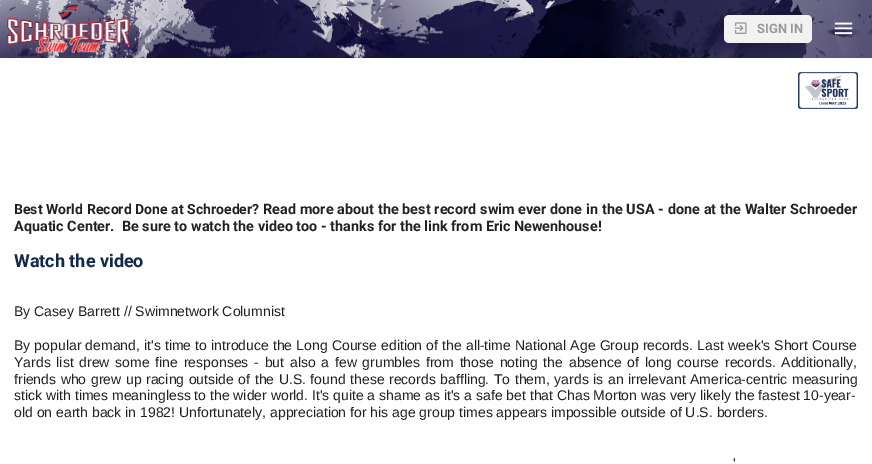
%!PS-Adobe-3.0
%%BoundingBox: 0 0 872 464
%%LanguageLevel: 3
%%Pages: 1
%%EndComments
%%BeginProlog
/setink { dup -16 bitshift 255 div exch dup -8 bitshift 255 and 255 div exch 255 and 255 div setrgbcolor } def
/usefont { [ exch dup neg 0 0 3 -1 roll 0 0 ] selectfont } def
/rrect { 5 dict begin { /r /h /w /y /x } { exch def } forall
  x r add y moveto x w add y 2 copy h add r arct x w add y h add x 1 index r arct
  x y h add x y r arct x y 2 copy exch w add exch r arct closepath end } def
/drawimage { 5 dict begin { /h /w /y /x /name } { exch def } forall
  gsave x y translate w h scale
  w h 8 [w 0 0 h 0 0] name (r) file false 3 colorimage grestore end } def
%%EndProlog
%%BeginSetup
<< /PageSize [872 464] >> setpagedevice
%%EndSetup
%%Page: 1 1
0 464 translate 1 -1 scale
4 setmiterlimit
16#FFFFFF setink
0 0 872 464 rectfill
(img1.raw) 0 0 872 58 drawimage
(img2.raw) 7 4 124 49 drawimage
16#F2F2F2 setink
724 15 88 28 5 rrect fill
(img3.raw) 734 22 13 12 drawimage
/Roboto-Bold 13 usefont
16#999999 setink
757 33 moveto (SIGN IN) show
(img4.raw) 834 22 19 13 drawimage
(img5.raw) 798 72 60 37 drawimage
/Roboto-Bold 14 usefont
16#212121 setink
14 214 moveto 0.25 0 32 (Best World Record Done at Schroeder?) widthshow
/Roboto-Bold 14.4 usefont
263 214 moveto 0.25 0 32 (Read more about the best record swim ever done in the USA - done at the Walter Schroeder) widthshow
14 231 moveto (Aquatic Center.  Be sure to watch the video too - thanks for the link from Eric Newenhouse!) show
/Roboto-Bold 18 usefont
16#13294B setink
14 267 moveto (Watch the video) show
/LiberationSans-Regular 14 usefont
16#212121 setink
14 316 moveto (By Casey Barrett // Swimnetwork Columnist) show
14 350 moveto 0.25 0 32 (By popular demand, it's time to introduce the Long Course edition of the all-time National Age Group records. Last week's Short Course) widthshow
14 367 moveto 1.9 0 32 (Yards list drew some fine responses - but also a few grumbles from those noting the absence of long course records. Additionally,) widthshow
14 384 moveto 0.7 0 32 (friends who grew up racing outside of the U.S. found these records baffling. To them, yards is an irrelevant America-centric measuring) widthshow
14 400 moveto (stick with times meaningless to the wider world. It's quite a shame as it's a safe bet that Chas Morton was very likely the fastest 10-year-) show
14 417 moveto (old on earth back in 1982! Unfortunately, appreciation for his age group times appears impossible outside of U.S. borders.) show
733 468 moveto 3 0 32 (') widthshow
showpage
%%EOF
